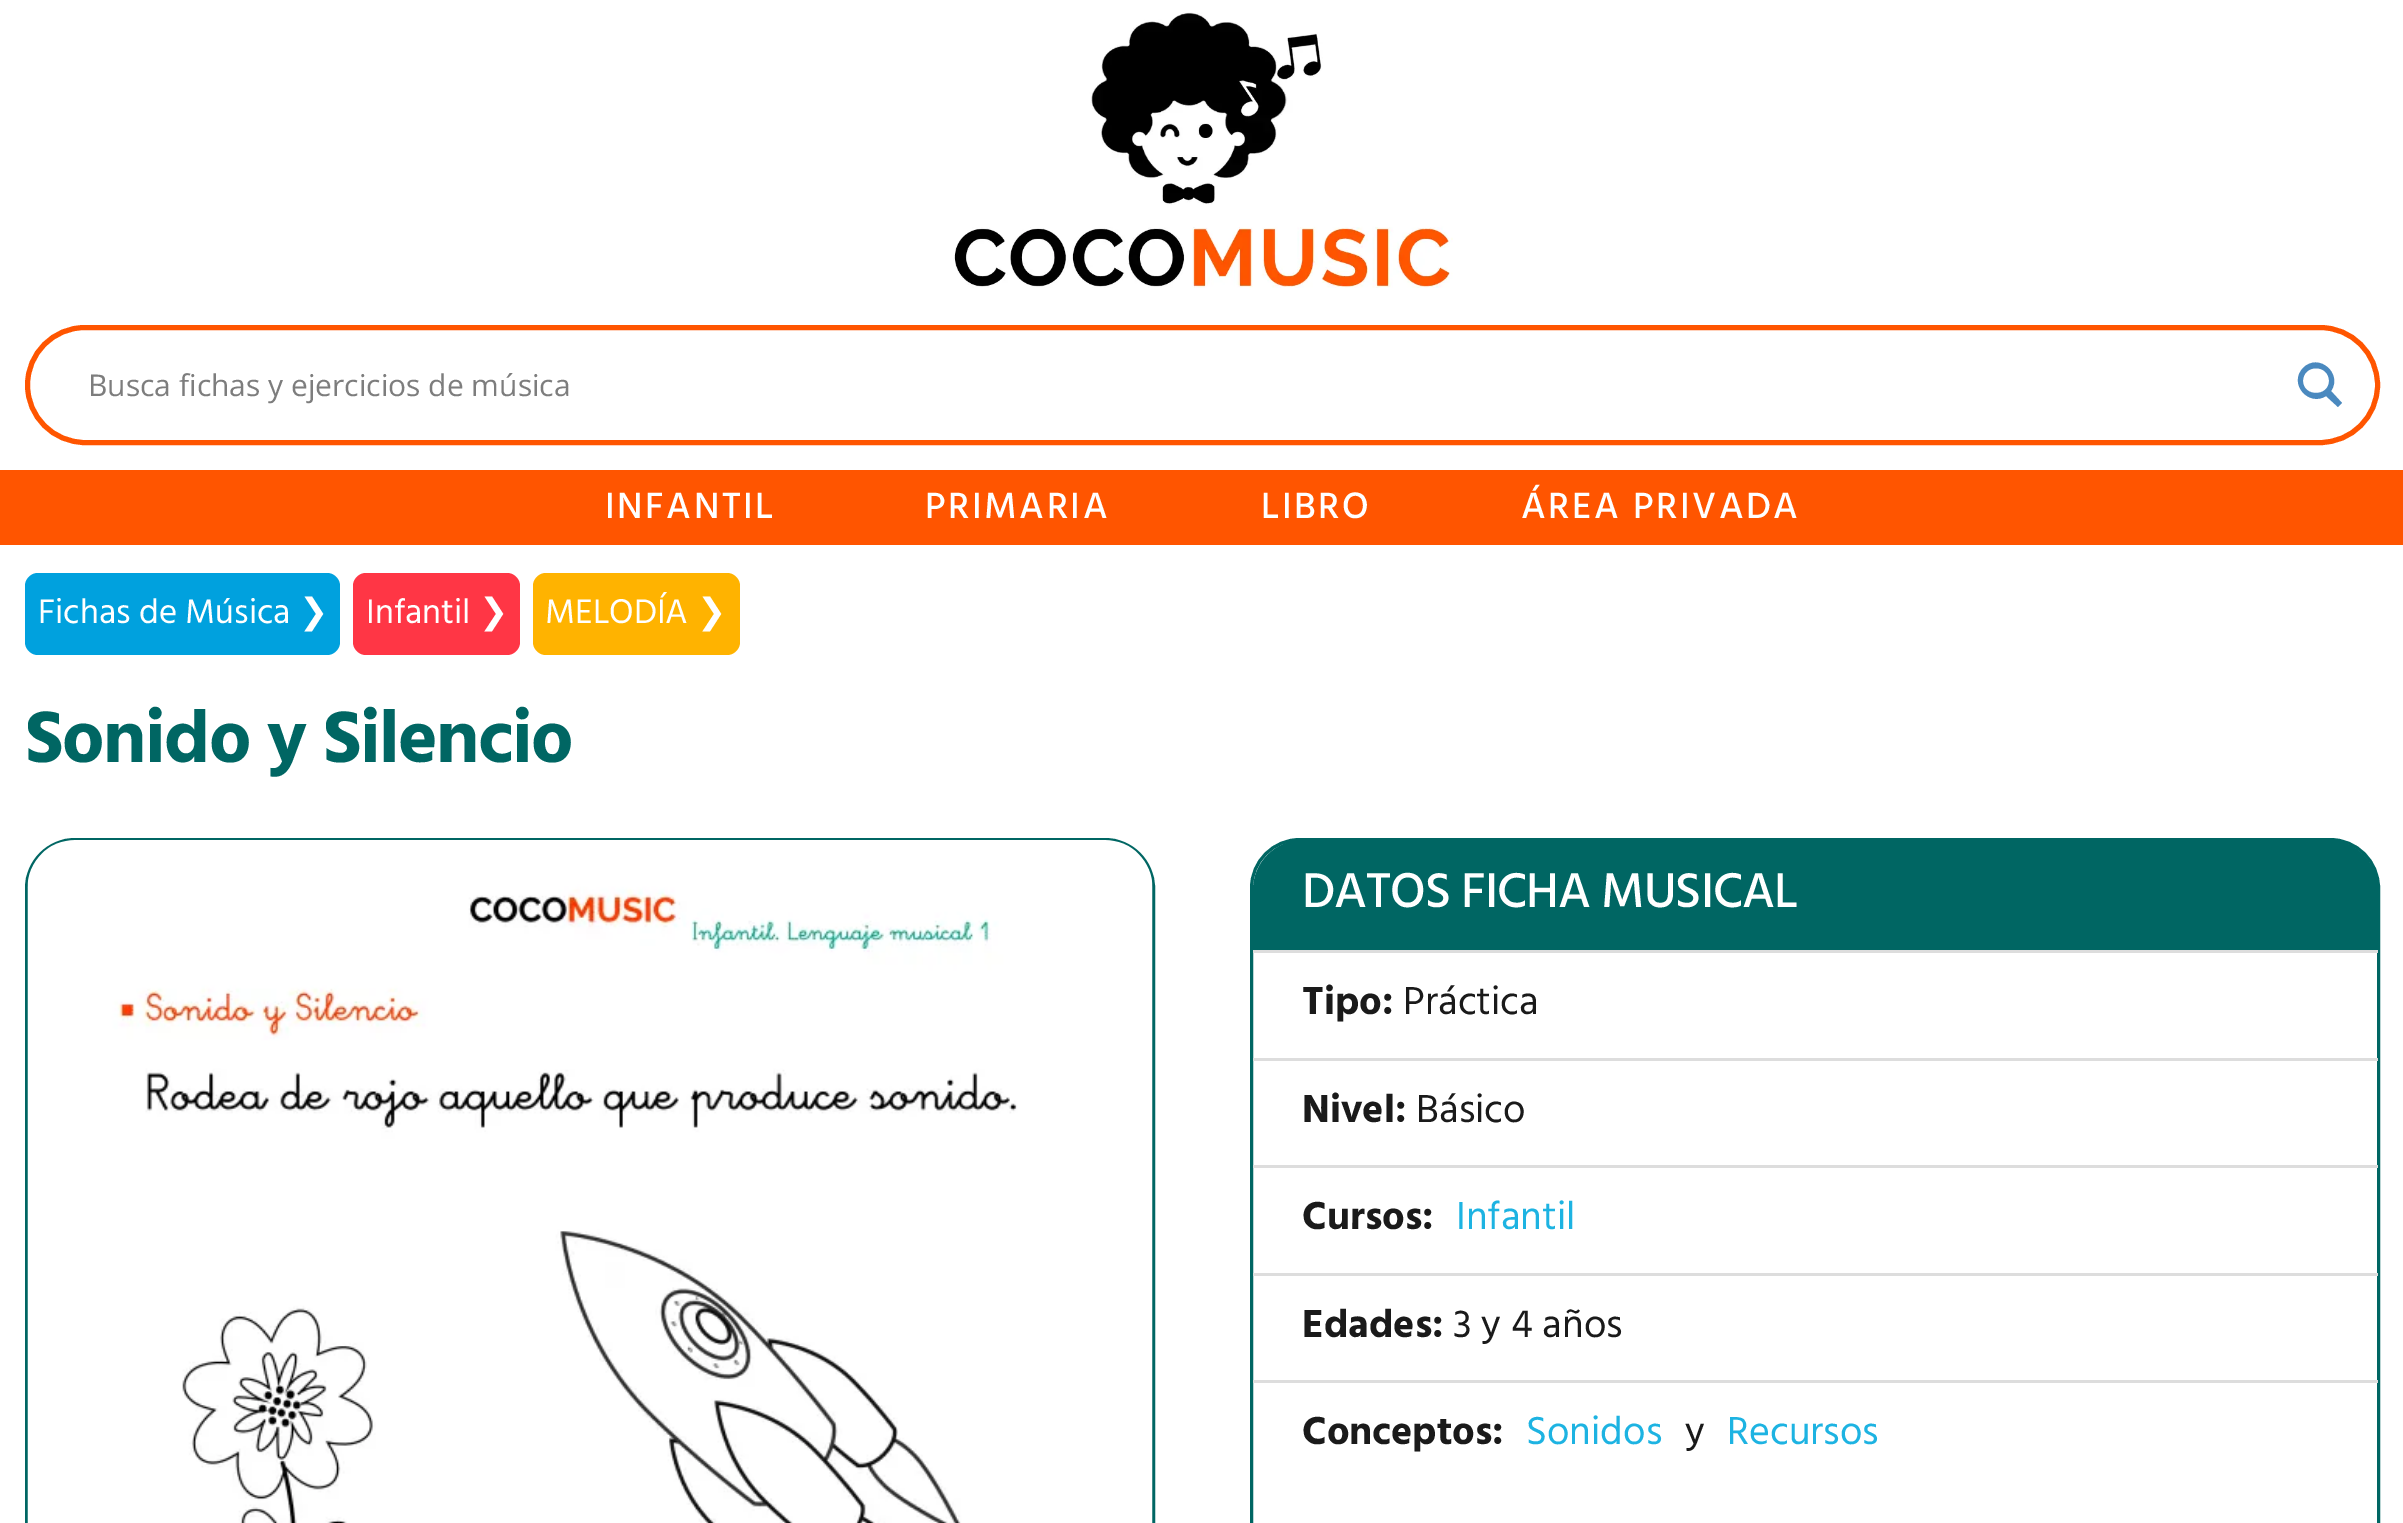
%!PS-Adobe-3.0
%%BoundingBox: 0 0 2403 1523
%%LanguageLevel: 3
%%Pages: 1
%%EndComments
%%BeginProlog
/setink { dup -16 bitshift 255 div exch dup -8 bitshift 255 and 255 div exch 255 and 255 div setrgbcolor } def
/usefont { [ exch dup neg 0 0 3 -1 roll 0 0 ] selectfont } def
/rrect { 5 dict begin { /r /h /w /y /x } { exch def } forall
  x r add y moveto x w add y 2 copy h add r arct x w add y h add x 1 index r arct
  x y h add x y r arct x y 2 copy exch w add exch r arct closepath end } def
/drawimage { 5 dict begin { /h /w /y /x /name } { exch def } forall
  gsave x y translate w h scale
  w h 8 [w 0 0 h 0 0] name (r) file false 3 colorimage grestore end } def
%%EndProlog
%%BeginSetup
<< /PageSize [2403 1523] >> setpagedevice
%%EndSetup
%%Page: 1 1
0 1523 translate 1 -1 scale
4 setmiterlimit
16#FFFFFF setink
0 0 2403 1523 rectfill
(img1.raw) 953 12 500 276 drawimage
16#FF5500 setink
5 setlinewidth
27.5 327.5 2350 115 57.5 rrect stroke
/OpenSans-Regular 30 usefont
16#7D7D7D setink
88 396 moveto (Busca fichas y ejercicios de música) show
16#4A89BF setink
2342 403 moveto 2331 391 lineto 2343 374 2319 352 2303 368 curveto 2288 384 2309 407 2326 396 curveto 2338 407 lineto closepath 2303 381 moveto 2303 364 2329 364 2329 381 curveto 2329 397 2303 397 2303 381 curveto closepath fill
16#FF5500 setink
0 470 2403 75 rectfill
/Hind-Medium 37.5 usefont
16#FFFFFF setink
605 518 moveto 2.5 0 (INFANTIL) ashow
925 518 moveto 2.5 0 (PRIMARIA) ashow
1261 518 moveto 2.5 0 (LIBRO) ashow
1521 518 moveto 2.5 0 (ÁREA PRIVADA) ashow
16#00A1DE setink
38 573 moveto 290 573 lineto 290 655 lineto 38 655 lineto 31 655 25 649 25 642 curveto 25 586 lineto 25 579 31 573 38 573 curveto closepath fill
/Hind-Regular 35 usefont
16#FFFFFF setink
38 623 moveto (Fichas de Música) show
16#00A1DE setink
290 573 moveto 327 573 lineto 334 573 340 579 340 586 curveto 340 642 lineto 340 649 334 655 327 655 curveto 290 655 lineto closepath fill
/DejaVuSans-Regular 35 usefont
16#FFFFFF setink
299 623 moveto (❯) show
16#FF3645 setink
366 573 moveto 470 573 lineto 470 655 lineto 366 655 lineto 359 655 353 649 353 642 curveto 353 586 lineto 353 579 359 573 366 573 curveto closepath fill
/Hind-Regular 35 usefont
16#FFFFFF setink
366 623 moveto (Infantil) show
16#FF3645 setink
470 573 moveto 507 573 lineto 514 573 520 579 520 586 curveto 520 642 lineto 520 649 514 655 507 655 curveto 470 655 lineto closepath fill
/DejaVuSans-Regular 35 usefont
16#FFFFFF setink
479 623 moveto (❯) show
16#FFB300 setink
546 573 moveto 688 573 lineto 688 655 lineto 546 655 lineto 539 655 533 649 533 642 curveto 533 586 lineto 533 579 539 573 546 573 curveto closepath fill
/Hind-Regular 35 usefont
16#FFFFFF setink
545 623 moveto (MELODÍA) show
16#FFB300 setink
688 573 moveto 727 573 lineto 734 573 740 579 740 586 curveto 740 642 lineto 740 649 734 655 727 655 curveto 688 655 lineto closepath fill
/DejaVuSans-Regular 35 usefont
16#FFFFFF setink
697 623 moveto (❯) show
/Hind-Bold 75 usefont
16#006663 setink
25 762 moveto -1.5 0 (Sonido y Silencio) ashow
3 setlinewidth
75 839.5 moveto 1105 839.5 lineto 1132 839.5 1153.5 861 1153.5 888 curveto 1153.5 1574.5 lineto 26.5 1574.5 lineto 26.5 888 lineto 26.5 861 48 839.5 75 839.5 curveto closepath stroke
(img2.raw) 27 840 1126 683 drawimage
1251.5 839.5 1127 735 48.5 rrect stroke
1303 840 moveto 2328 840 lineto 2355.5 840 2378 862.5 2378 890 curveto 2378 950 lineto 1253 950 lineto 1253 890 lineto 1253 862.5 1275.5 840 1303 840 curveto closepath fill
/Hind-Medium 50 usefont
16#FFFFFF setink
1302 907 moveto -1 0 (DATOS FICHA MUSICAL) ashow
16#DDDDDD setink
1253 950 1125 3 rectfill
/Hind-Bold 40 usefont
16#1A1A1A setink
1302 1014 moveto (Tipo:) show
/Hind-Regular 40 usefont
1403 1014 moveto (Práctica) show
16#DDDDDD setink
1253 1058 1125 3 rectfill
/Hind-Bold 40 usefont
16#1A1A1A setink
1302 1122 moveto (Nivel:) show
/Hind-Regular 40 usefont
1416 1122 moveto (Básico) show
16#DDDDDD setink
1253 1165 1125 3 rectfill
/Hind-Bold 40 usefont
16#1A1A1A setink
1302 1229 moveto (Cursos:) show
/Hind-Regular 40 usefont
16#1DB3E2 setink
1456 1229 moveto (Infantil) show
16#DDDDDD setink
1253 1273 1125 3 rectfill
/Hind-Bold 40 usefont
16#1A1A1A setink
1302 1337 moveto (Edades:) show
/Hind-Regular 40 usefont
1453 1337 moveto (3 y 4 años) show
16#DDDDDD setink
1253 1380 1125 3 rectfill
/Hind-Bold 40 usefont
16#1A1A1A setink
1302 1444 moveto (Conceptos:) show
/Hind-Regular 40 usefont
16#1DB3E2 setink
1526 1444 moveto (Sonidos) show
16#1A1A1A setink
1685 1444 moveto (y) show
16#1DB3E2 setink
1727 1444 moveto (Recursos) show
showpage
%%EOF
